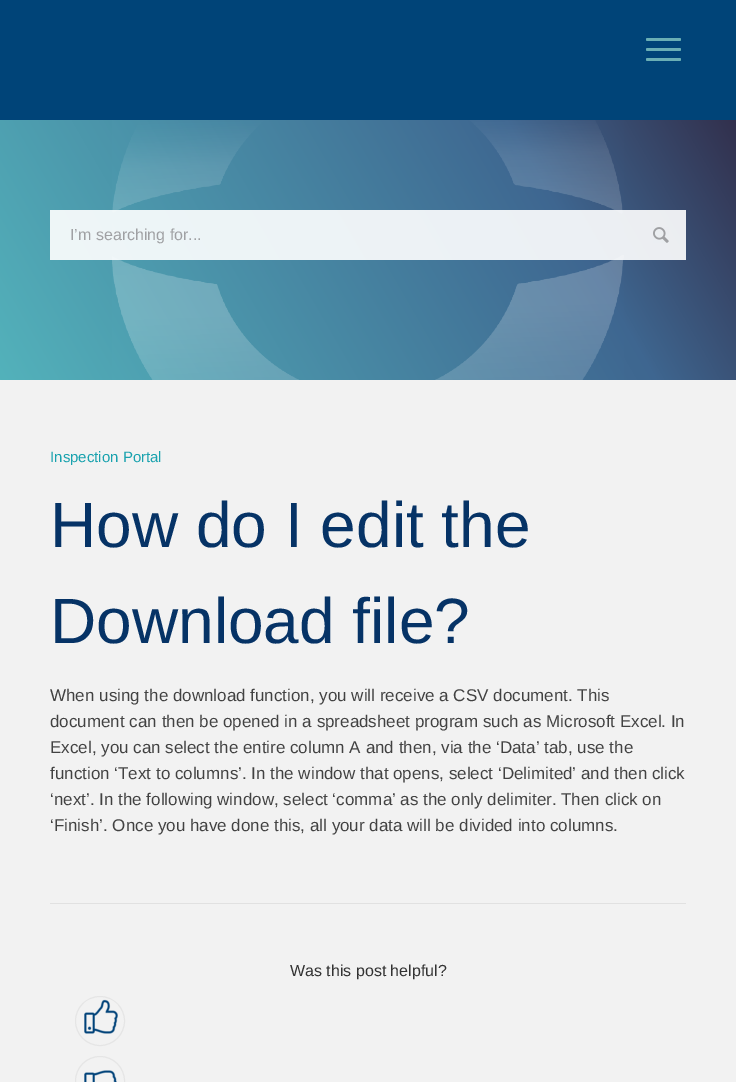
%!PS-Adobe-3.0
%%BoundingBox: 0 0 736 1082
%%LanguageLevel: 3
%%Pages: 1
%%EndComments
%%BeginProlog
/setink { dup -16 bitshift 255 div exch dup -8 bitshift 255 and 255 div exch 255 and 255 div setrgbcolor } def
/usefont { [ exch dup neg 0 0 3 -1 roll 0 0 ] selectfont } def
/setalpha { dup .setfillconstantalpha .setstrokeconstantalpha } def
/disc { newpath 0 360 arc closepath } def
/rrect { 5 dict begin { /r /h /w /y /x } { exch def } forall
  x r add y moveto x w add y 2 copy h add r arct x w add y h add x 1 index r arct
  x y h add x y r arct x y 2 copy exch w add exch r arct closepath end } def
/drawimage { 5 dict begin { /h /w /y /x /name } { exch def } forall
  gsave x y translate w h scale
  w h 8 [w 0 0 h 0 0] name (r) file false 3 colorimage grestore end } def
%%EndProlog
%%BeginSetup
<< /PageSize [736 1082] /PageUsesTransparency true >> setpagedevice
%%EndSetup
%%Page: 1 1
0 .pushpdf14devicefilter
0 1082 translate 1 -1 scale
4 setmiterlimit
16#F2F2F2 setink
0 0 736 1082 rectfill
16#004478 setink
0 0 736 120 rectfill
16#6AAFB5 setink
646 48 35 3 1.5 rrect fill
646 38 35 3 1.5 rrect fill
646 58 35 3 1.5 rrect fill
gsave 0 120 moveto 736 120 lineto 736 380 lineto 0 380 lineto closepath clip newpath
<< /ShadingType 2 /ColorSpace /DeviceRGB /Coords [700 58 36 442] /Extend [true true] /Function << /FunctionType 3 /Domain [0 1] /Functions [<< /FunctionType 2 /Domain [0 1] /C0 [0.196 0.188 0.302] /C1 [0.243 0.4 0.565] /N 1 >> << /FunctionType 2 /Domain [0 1] /C0 [0.243 0.4 0.565] /C1 [0.325 0.698 0.733] /N 1 >>] /Bounds [0.26] /Encode [0 1 0 1] >> >> shfill grestore
(img1.raw) 112 120 512 260 drawimage
0.9 setalpha
16#FFFFFF setink
50 210 636 50 rectfill
/LiberationSans-Regular 16 usefont
1 setalpha
16#9FA0A3 setink
70 240 moveto (I’m searching for...) show
(img2.raw) 653 227 16 16 drawimage
/LiberationSans-Regular 15 usefont
16#19A2AE setink
50 462 moveto (Inspection Portal) show
/LiberationSans-Regular 64 usefont
16#063366 setink
50 547 moveto (How do I edit the) show
50 643 moveto (Download file?) show
/LiberationSans-Regular 17 usefont
16#424242 setink
[
    [(When using the download function, you will receive a CSV document. This) 50 701]
    [(document can then be opened in a spreadsheet program such as Microsoft Excel. In) 50 727]
    [(Excel, you can select the entire column A and then, via the ‘Data’ tab, use the) 50 753]
    [(function ‘Text to columns’. In the window that opens, select ‘Delimited’ and then click) 50 779]
    [(‘next’. In the following window, select ‘comma’ as the only delimiter. Then click on) 50 805]
    [(‘Finish’. Once you have done this, all your data will be divided into columns.) 50 831]
] { aload pop moveto show } forall
16#E1E1E1 setink
50 903 636 1 rectfill
/LiberationSans-Regular 16 usefont
16#333333 setink
290 976 moveto (Was this post helpful?) show
16#E5E5E5 setink
100 1021 24.5 disc stroke
(img3.raw) 84 999 34 35 drawimage
100 1081 24.5 disc stroke
(img4.raw) 84 1070 33 12 drawimage
.poppdf14devicefilter showpage
%%EOF
